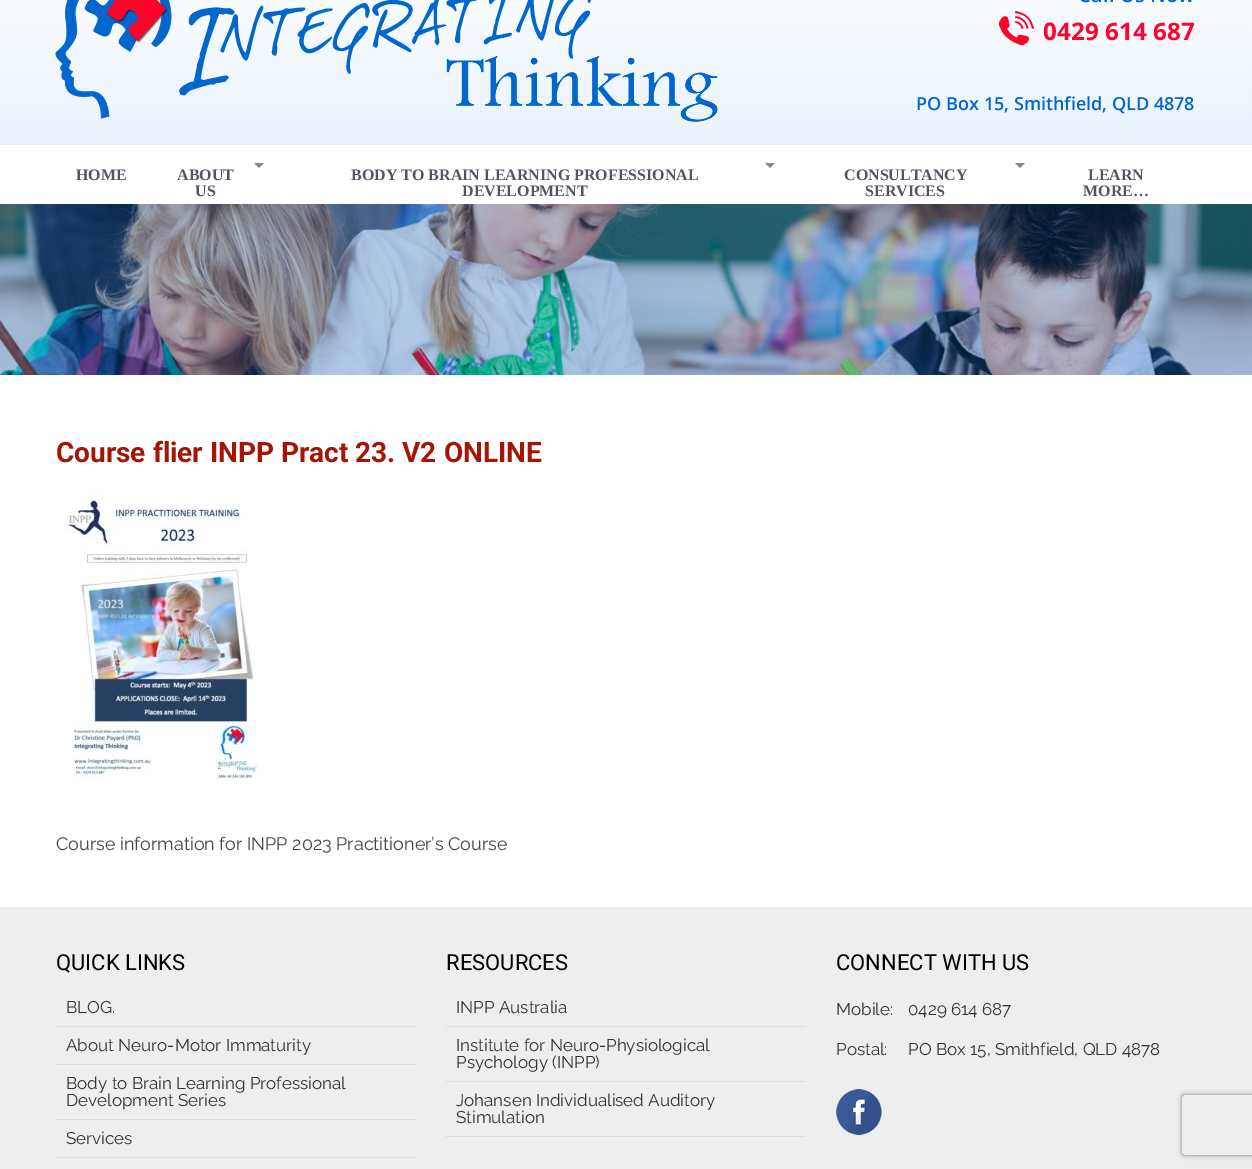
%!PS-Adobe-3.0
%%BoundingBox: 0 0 1252 1169
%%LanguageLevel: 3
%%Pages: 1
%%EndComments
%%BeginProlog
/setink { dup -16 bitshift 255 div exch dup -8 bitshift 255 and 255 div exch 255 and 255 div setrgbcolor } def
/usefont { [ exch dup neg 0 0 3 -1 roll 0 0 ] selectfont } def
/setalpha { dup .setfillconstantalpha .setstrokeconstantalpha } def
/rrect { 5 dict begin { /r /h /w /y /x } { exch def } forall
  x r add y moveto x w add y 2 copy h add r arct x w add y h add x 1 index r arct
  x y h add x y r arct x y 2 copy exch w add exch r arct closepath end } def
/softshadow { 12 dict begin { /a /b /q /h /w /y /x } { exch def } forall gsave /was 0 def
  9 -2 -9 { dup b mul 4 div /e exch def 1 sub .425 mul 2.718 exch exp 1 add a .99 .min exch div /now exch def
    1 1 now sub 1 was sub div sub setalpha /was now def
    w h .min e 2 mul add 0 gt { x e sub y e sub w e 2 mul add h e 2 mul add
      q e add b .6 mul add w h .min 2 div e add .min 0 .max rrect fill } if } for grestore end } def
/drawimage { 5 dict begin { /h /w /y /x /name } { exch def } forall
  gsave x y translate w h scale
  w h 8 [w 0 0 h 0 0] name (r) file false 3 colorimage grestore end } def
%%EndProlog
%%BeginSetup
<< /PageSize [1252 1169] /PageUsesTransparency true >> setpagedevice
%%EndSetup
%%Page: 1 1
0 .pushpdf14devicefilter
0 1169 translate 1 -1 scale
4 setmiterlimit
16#FFFFFF setink
0 0 1252 1169 rectfill
(img1.raw) 0 0 1252 145 drawimage
(img2.raw) 55 0 1139 122 drawimage
/LiberationSerif-Bold 16 usefont
16#595162 setink
76 180 moveto (HOME) show
16#888888 setink
254 163 moveto 264 163 lineto 259 168 lineto closepath fill
16#595162 setink
177 180 moveto (ABOUT) show
195 196 moveto (US) show
16#888888 setink
765 163 moveto 775 163 lineto 770 168 lineto closepath fill
16#595162 setink
351 180 moveto (BODY TO BRAIN LEARNING PROFESSIONAL) show
462 196 moveto (DEVELOPMENT) show
16#888888 setink
1015 163 moveto 1025 163 lineto 1020 168 lineto closepath fill
16#595162 setink
[
    [(CONSULTANCY) 844 180]
    [(SERVICES) 865 196]
    [(LEARN) 1088 180]
    [(MORE…) 1083 196]
] { aload pop moveto show } forall
(img3.raw) 0 204 1252 171 drawimage
/Roboto-Bold 28 usefont
16#A51504 setink
56 462 moveto (Course flier INPP Pract 23. V2 ONLINE) show
(img4.raw) 56 492 205 288 drawimage
/Raleway-Regular 18 usefont
16#444444 setink
56 850 moveto (Course information for INPP 2023 Practitioner’s Course) show
16#EEEEEE setink
0 907 1252 262 rectfill
/Roboto-Regular 22 usefont
16#000000 setink
56 970 moveto (QUICK LINKS) show
16#DDDDDD setink
56 1026 360 1 rectfill
/Raleway-Regular 17 usefont
16#333333 setink
66 1013 moveto (BLOG.) show
16#DDDDDD setink
56 1064 360 1 rectfill
16#333333 setink
66 1051 moveto (About Neuro-Motor Immaturity) show
16#DDDDDD setink
56 1119 360 1 rectfill
16#333333 setink
66 1089 moveto (Body to Brain Learning Professional) show
66 1106 moveto (Development Series) show
16#DDDDDD setink
56 1157 360 1 rectfill
16#333333 setink
66 1144 moveto (Services) show
/Roboto-Regular 22 usefont
16#000000 setink
446 970 moveto (RESOURCES) show
16#DDDDDD setink
446 1026 360 1 rectfill
/Raleway-Regular 17 usefont
16#333333 setink
456 1013 moveto (INPP Australia) show
16#DDDDDD setink
446 1081 360 1 rectfill
16#333333 setink
456 1051 moveto (Institute for Neuro-Physiological) show
456 1068 moveto (Psychology \(INPP\)) show
16#DDDDDD setink
446 1136 360 1 rectfill
16#333333 setink
456 1106 moveto (Johansen Individualised Auditory) show
456 1123 moveto (Stimulation) show
/Roboto-Regular 22 usefont
16#000000 setink
836 970 moveto (CONNECT WITH US) show
/Raleway-Regular 17 usefont
16#333333 setink
[
    [(Mobile:) 836 1015]
    [(0429 614 687) 908 1015]
    [(Postal:) 836 1055]
    [(PO Box 15, Smithfield, QLD 4878) 908 1055]
] { aload pop moveto show } forall
(img5.raw) 836 1089 46 46 drawimage
gsave
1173 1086 moveto 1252 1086 lineto 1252 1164 lineto 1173 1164 lineto closepath 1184 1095 moveto 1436 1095 lineto 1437 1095 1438 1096 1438 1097 curveto 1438 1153 lineto 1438 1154 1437 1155 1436 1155 curveto 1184 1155 lineto 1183 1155 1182 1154 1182 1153 curveto 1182 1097 lineto 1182 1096 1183 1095 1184 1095 curveto closepath eoclip newpath
16#808080 setink
1182 1095 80 60 2 2.5 1 softshadow
grestore
.poppdf14devicefilter showpage
%%EOF
